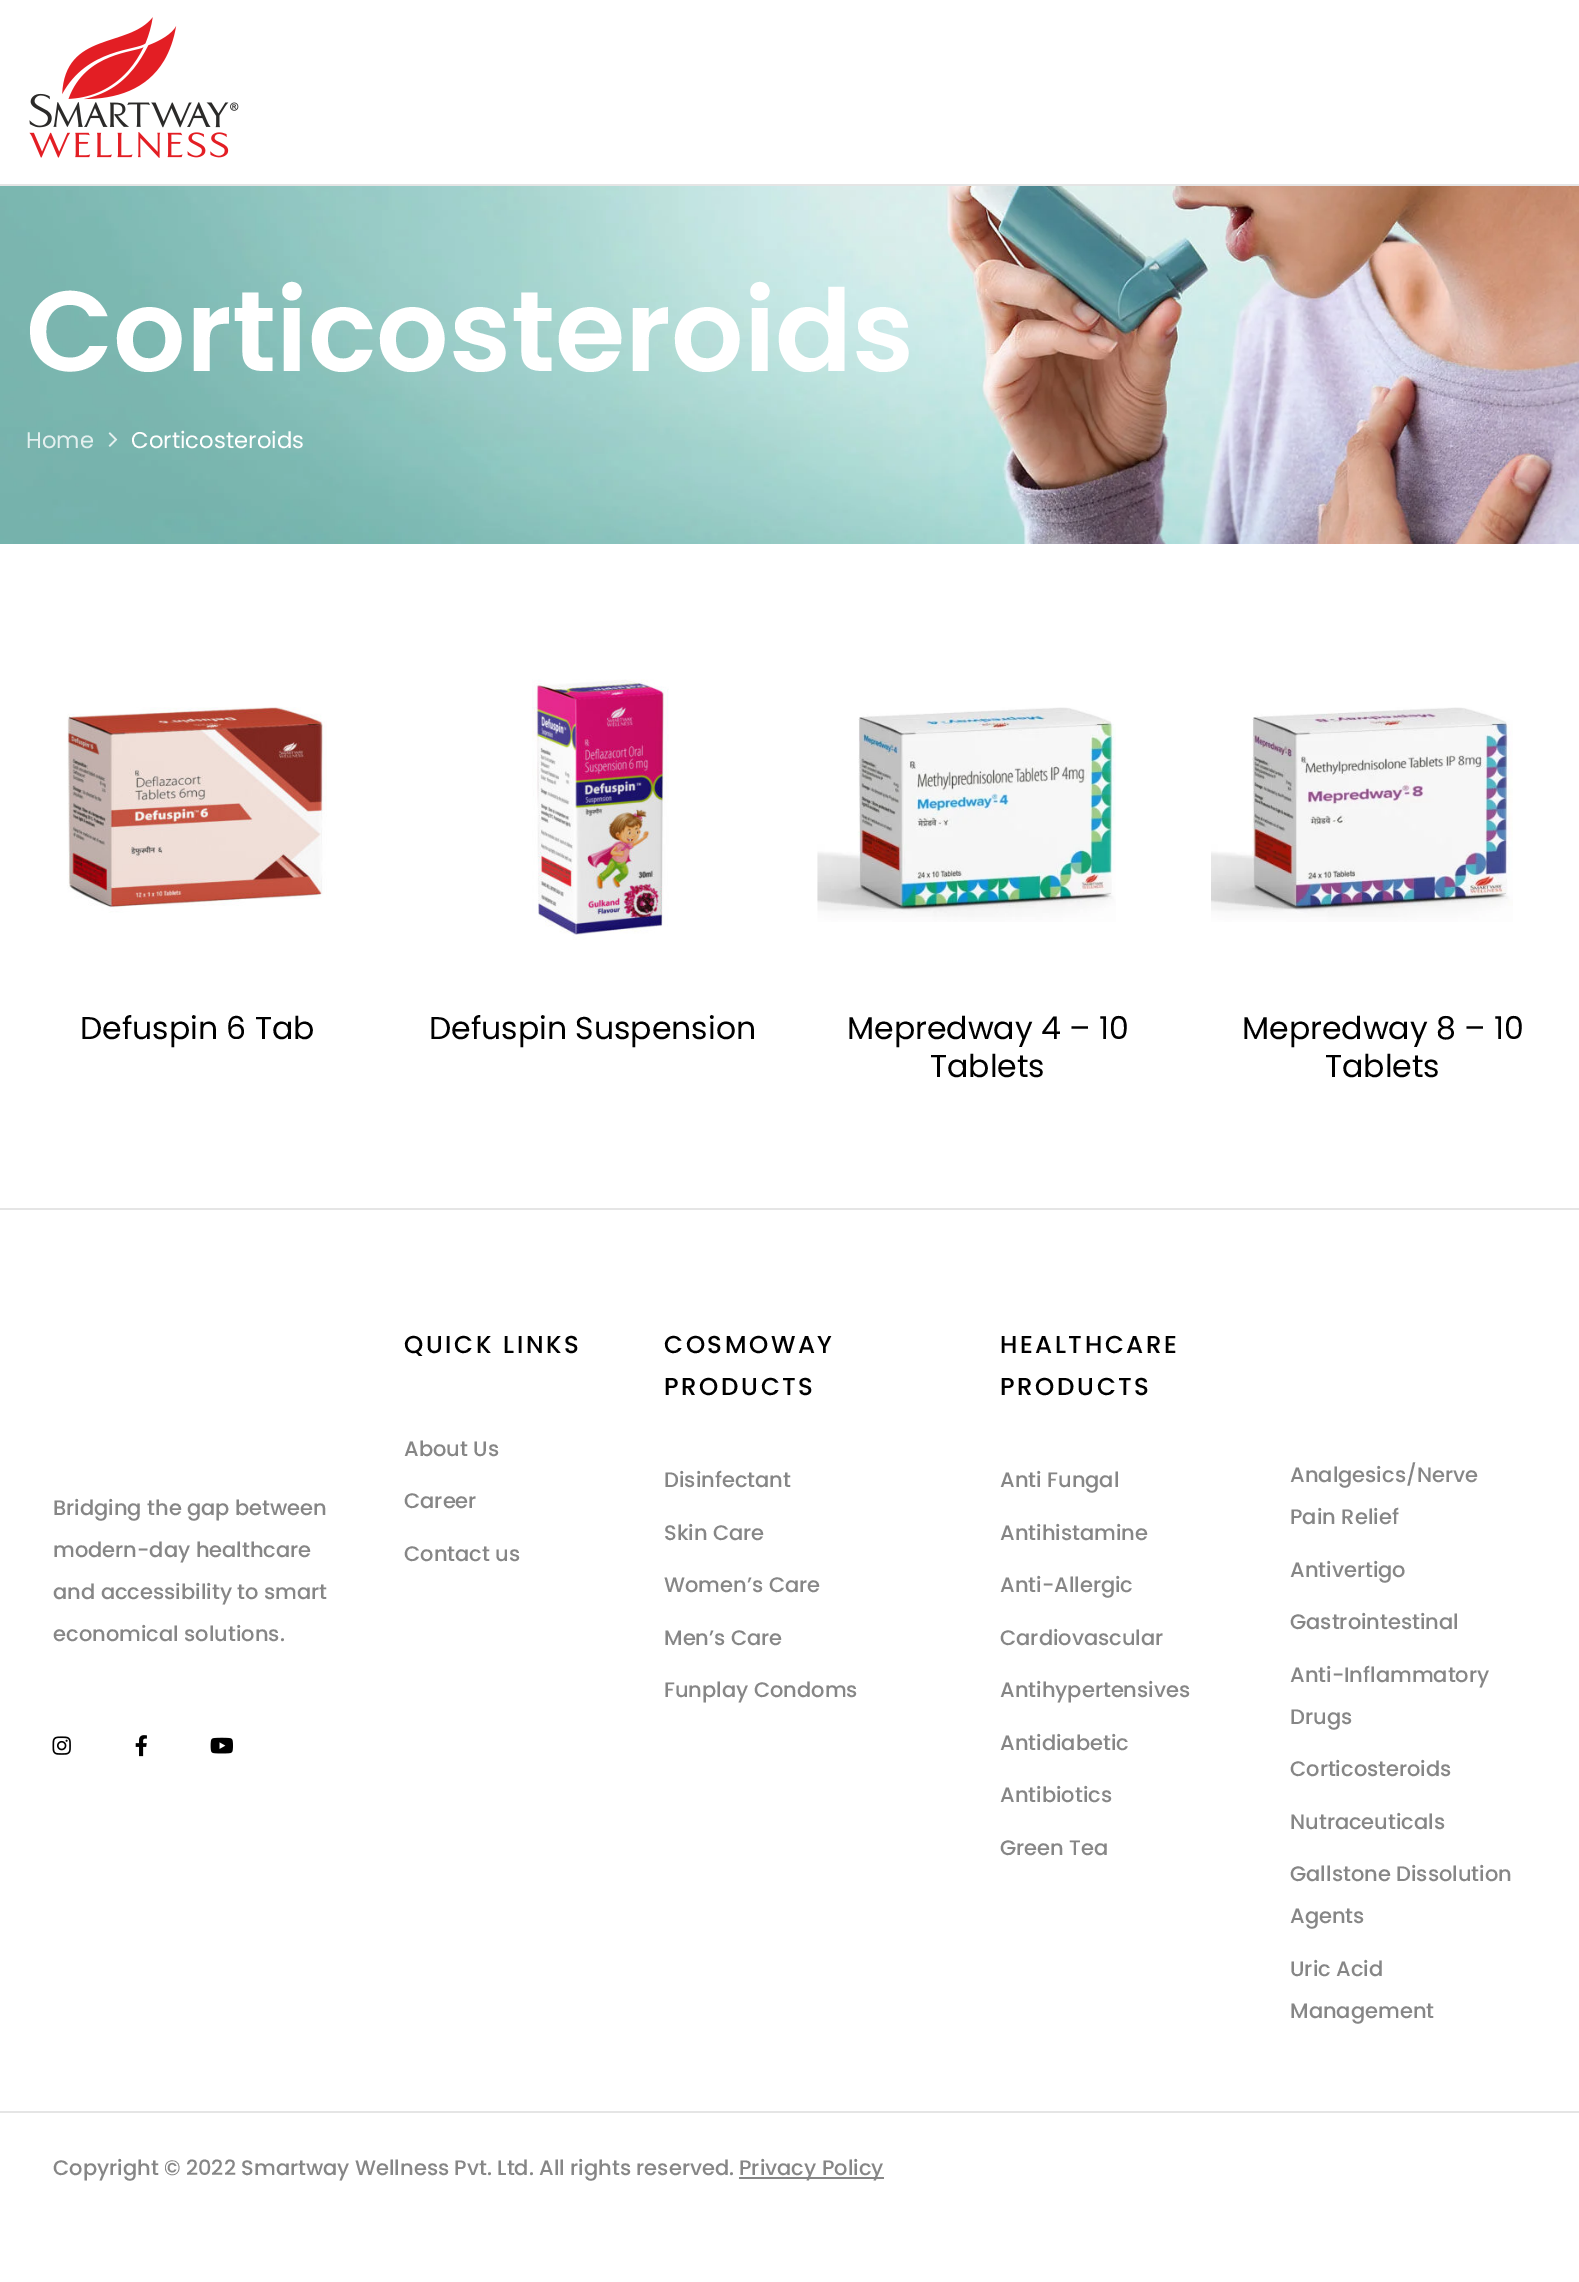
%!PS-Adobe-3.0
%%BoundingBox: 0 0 1579 2282
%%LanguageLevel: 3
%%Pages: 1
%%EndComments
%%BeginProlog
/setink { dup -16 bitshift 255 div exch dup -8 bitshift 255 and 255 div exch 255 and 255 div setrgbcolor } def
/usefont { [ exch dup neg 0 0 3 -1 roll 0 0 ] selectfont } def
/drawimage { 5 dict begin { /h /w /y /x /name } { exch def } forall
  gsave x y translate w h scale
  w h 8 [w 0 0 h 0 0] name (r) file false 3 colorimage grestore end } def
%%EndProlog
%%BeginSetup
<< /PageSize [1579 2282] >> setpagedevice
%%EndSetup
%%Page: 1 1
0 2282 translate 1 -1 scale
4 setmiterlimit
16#FFFFFF setink
0 0 1579 2282 rectfill
16#E5E5E5 setink
0 184 1579 2 rectfill
(img1.raw) 29 17 210 141 drawimage
(img2.raw) 0 186 1579 358 drawimage
/Poppins-SemiBold 113.75 usefont
16#FFFFFF setink
26 371 moveto (Corticosteroids) show
/Poppins-Regular 22.75 usefont
16#E4F0EF setink
26 448 moveto (Home) show
(img3.raw) 108 432 10 15 drawimage
16#FFFFFF setink
131 448 moveto (Corticosteroids) show
(img4.raw) 67 707 260 206 drawimage
/Poppins-Regular 31.5 usefont
16#000000 setink
80 1039 moveto (Defuspin 6 Tab) show
(img5.raw) 532 679 137 261 drawimage
429 1039 moveto (Defuspin Suspension) show
(img6.raw) 817 707 299 215 drawimage
847 1039 moveto (Mepredway 4 – 10) show
930 1077 moveto (Tablets) show
(img7.raw) 1211 707 302 215 drawimage
1242 1039 moveto (Mepredway 8 – 10) show
1325 1077 moveto (Tablets) show
16#E5E5E5 setink
0 1208 1579 2 rectfill
0 2111 1579 2 rectfill
/Poppins-Medium 21 usefont
16#868686 setink
[
    [(Bridging the gap between) 53 1515]
    [(modern-day healthcare) 53 1557]
    [(and accessibility to smart) 53 1599]
    [(economical solutions.) 53 1641]
] { aload pop moveto show } forall
(img8.raw) 52 1736 19 19 drawimage
(img9.raw) 135 1735 12 22 drawimage
(img10.raw) 210 1737 23 17 drawimage
/Poppins-Medium 24.5 usefont
16#000000 setink
404 1353 moveto 2.6 0 (QUICK LINKS) ashow
/Poppins-Medium 21 usefont
16#868686 setink
[
    [(About Us) 404 1456]
    [(Career) 404 1508]
    [(Contact us) 404 1561]
] { aload pop moveto show } forall
/Poppins-Medium 24.5 usefont
16#000000 setink
664 1353 moveto 2.6 0 (COSMOWAY) ashow
664 1395 moveto 2.6 0 (PRODUCTS) ashow
/Poppins-Medium 21 usefont
16#868686 setink
[
    [(Disinfectant) 664 1487]
    [(Skin Care) 664 1540]
    [(Women’s Care) 664 1592]
    [(Men’s Care) 664 1645]
    [(Funplay Condoms) 664 1697]
] { aload pop moveto show } forall
/Poppins-Medium 24.5 usefont
16#000000 setink
1000 1353 moveto 2.6 0 (HEALTHCARE) ashow
1000 1395 moveto 2.6 0 (PRODUCTS) ashow
/Poppins-Medium 21 usefont
16#868686 setink
[
    [(Anti Fungal) 1000 1487]
    [(Antihistamine) 1000 1540]
    [(Anti-Allergic) 1000 1592]
    [(Cardiovascular) 1000 1645]
    [(Antihypertensives) 1000 1697]
    [(Antidiabetic) 1000 1750]
    [(Antibiotics) 1000 1802]
    [(Green Tea) 1000 1855]
    [(Analgesics/Nerve) 1290 1482]
    [(Pain Relief) 1290 1524]
    [(Antivertigo) 1290 1577]
    [(Gastrointestinal) 1290 1629]
    [(Anti-Inflammatory) 1290 1682]
    [(Drugs) 1290 1724]
    [(Corticosteroids) 1290 1776]
    [(Nutraceuticals) 1290 1829]
    [(Gallstone Dissolution) 1290 1881]
    [(Agents) 1290 1923]
    [(Uric Acid) 1290 1976]
    [(Management) 1290 2018]
    [(Copyright © 2022 Smartway Wellness Pvt. Ltd. All rights reserved.) 53 2175]
] { aload pop moveto show } forall
739 2177 145 2 rectfill
739 2175 moveto (Privacy Policy) show
showpage
%%EOF
